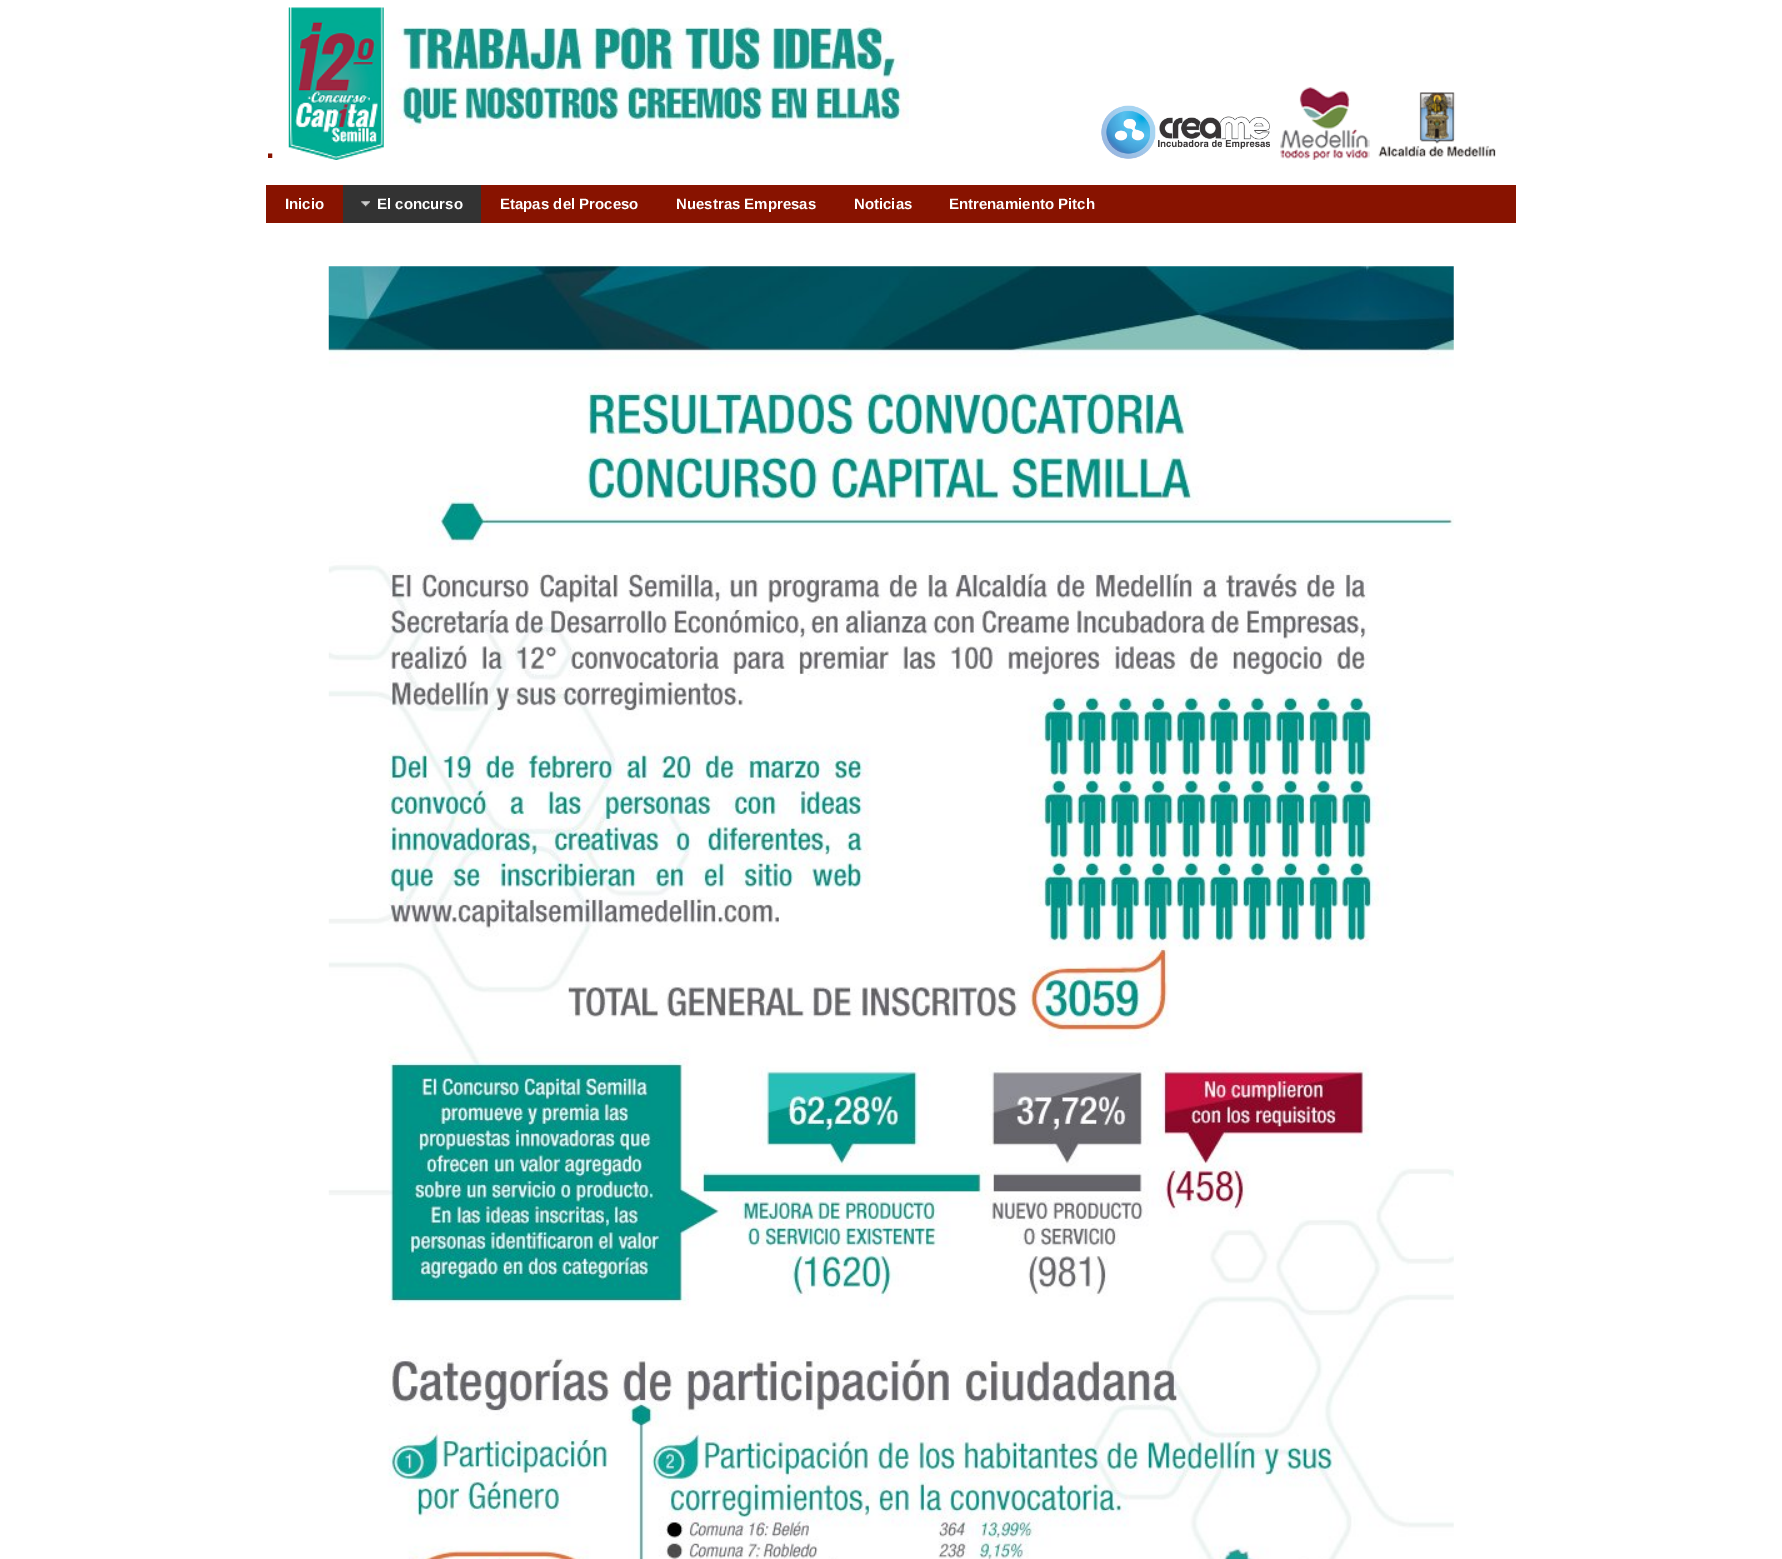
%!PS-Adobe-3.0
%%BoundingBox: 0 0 1782 1559
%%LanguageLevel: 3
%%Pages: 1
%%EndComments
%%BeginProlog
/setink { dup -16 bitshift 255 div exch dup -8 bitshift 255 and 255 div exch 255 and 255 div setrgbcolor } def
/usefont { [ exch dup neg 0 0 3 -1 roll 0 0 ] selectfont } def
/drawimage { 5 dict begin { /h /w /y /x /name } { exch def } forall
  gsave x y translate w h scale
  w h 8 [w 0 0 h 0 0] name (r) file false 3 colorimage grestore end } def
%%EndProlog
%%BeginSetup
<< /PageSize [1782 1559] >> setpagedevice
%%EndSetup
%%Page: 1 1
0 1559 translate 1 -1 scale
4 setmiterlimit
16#FFFFFF setink
0 0 1782 1559 rectfill
/LiberationSans-Bold 30 usefont
16#881300 setink
266 158 moveto (.) show
(img1.raw) 288 7 96 153 drawimage
(img2.raw) 389 20 520 109 drawimage
(img3.raw) 1101 105 169 54 drawimage
(img4.raw) 1280 87 90 73 drawimage
(img5.raw) 1378 92 118 65 drawimage
266 185 1250 38 rectfill
/LiberationSans-Bold 15 usefont
16#FFFFFF setink
285 209 moveto (Inicio) show
16#333333 setink
343 185 138 38 rectfill
(img6.raw) 361 201 9 6 drawimage
16#FFFFFF setink
[
    [(El concurso) 377 209]
    [(Etapas del Proceso) 500 209]
    [(Nuestras Empresas) 676 209]
    [(Noticias) 854 209]
    [(Entrenamiento Pitch) 949 209]
] { aload pop moveto show } forall
(img7.raw) 328 266 1126 1293 drawimage
showpage
%%EOF
